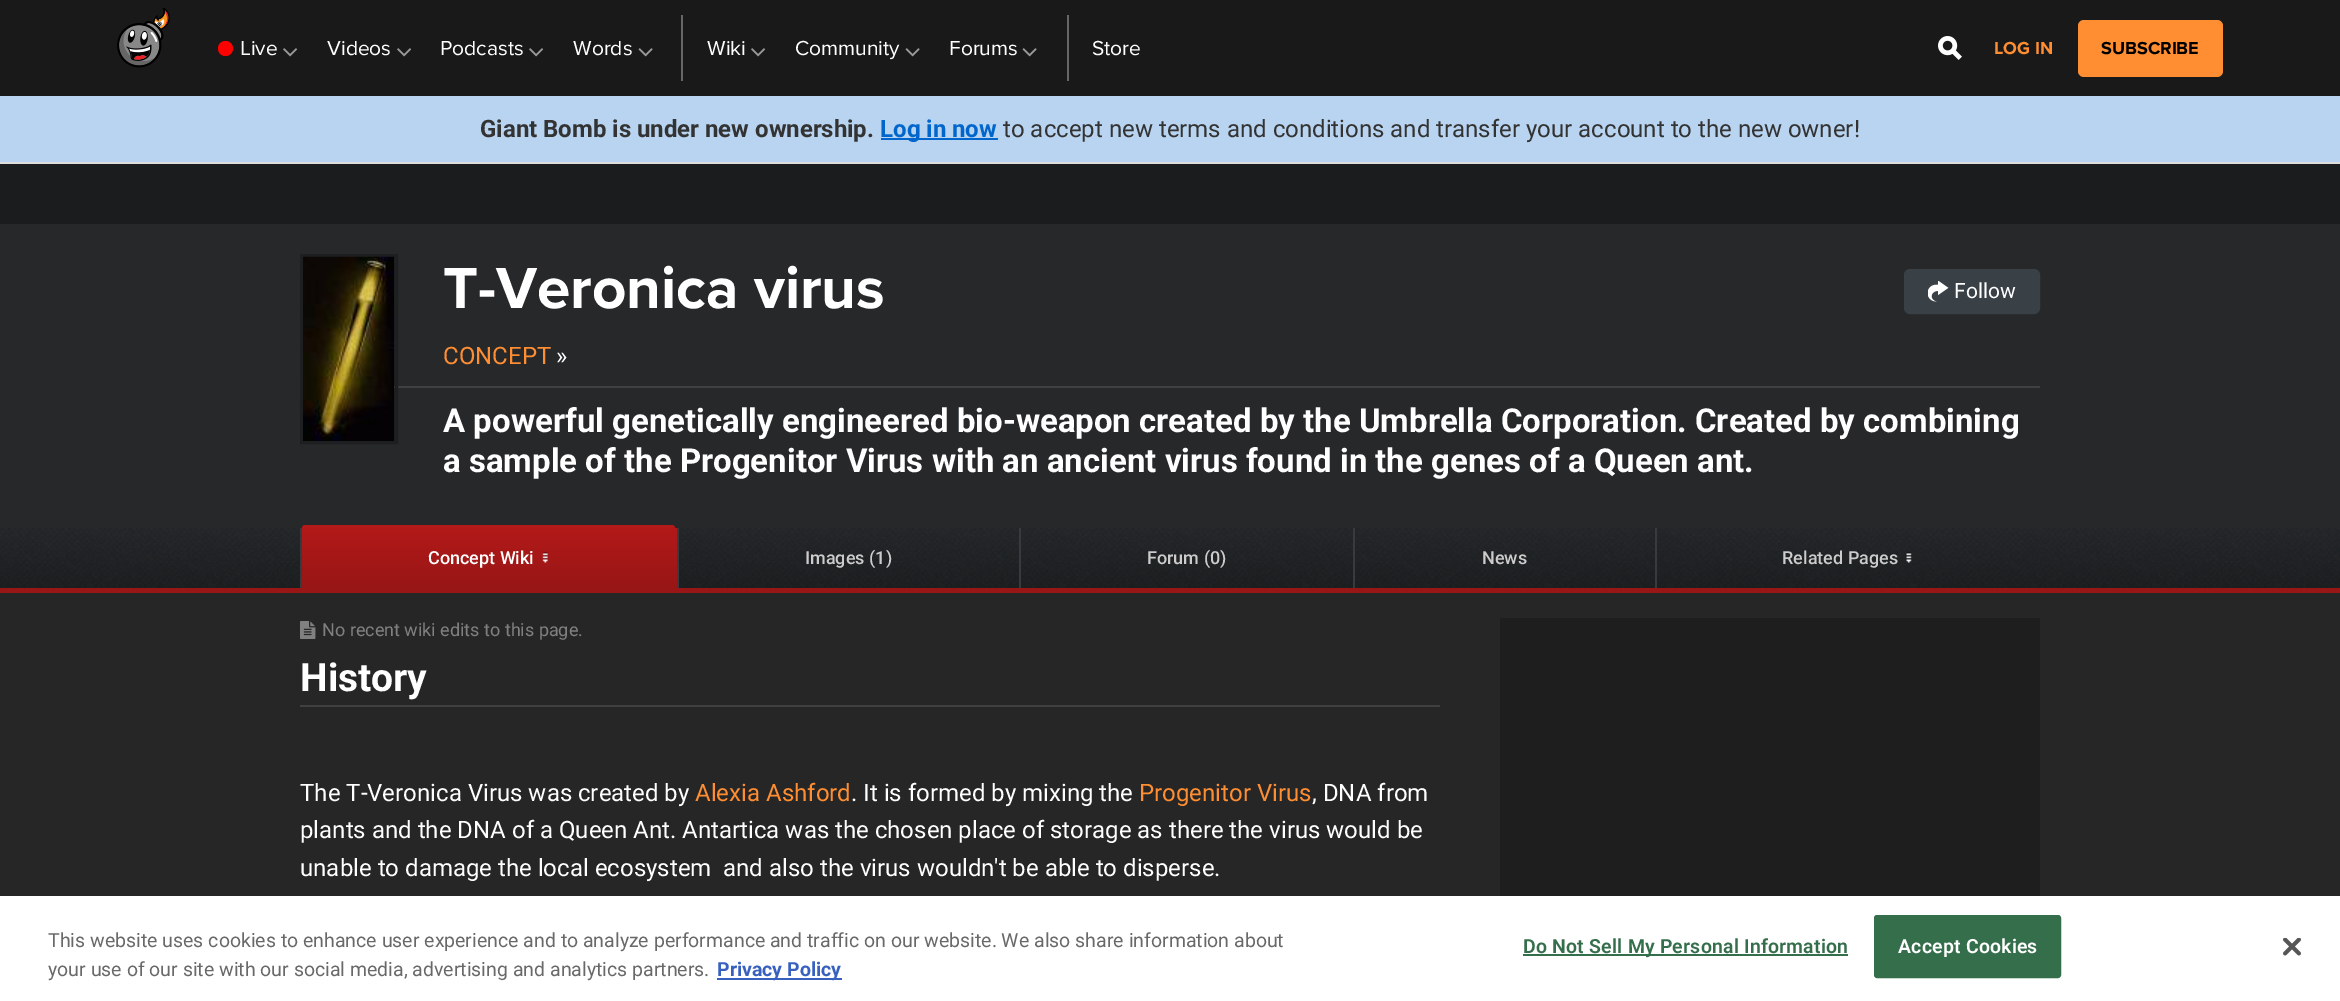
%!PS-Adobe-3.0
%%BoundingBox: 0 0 2340 1001
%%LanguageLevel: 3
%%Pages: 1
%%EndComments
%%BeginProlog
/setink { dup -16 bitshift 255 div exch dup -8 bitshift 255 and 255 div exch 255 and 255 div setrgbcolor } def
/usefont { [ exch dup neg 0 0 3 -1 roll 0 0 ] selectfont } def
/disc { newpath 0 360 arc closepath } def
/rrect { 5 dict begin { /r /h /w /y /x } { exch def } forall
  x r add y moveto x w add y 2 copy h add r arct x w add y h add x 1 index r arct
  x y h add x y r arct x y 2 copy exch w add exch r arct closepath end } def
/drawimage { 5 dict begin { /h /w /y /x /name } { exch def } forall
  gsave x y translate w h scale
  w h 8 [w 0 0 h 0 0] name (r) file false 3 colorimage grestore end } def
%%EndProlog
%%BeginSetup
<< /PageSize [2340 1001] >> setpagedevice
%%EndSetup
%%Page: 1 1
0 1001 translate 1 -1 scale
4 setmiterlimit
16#262626 setink
0 0 2340 1001 rectfill
16#191919 setink
0 0 2340 96 rectfill
(img1.raw) 117 8 53 60 drawimage
16#FF0000 setink
225.5 48.5 7.5 disc fill
/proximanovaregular-Regular 21 usefont
16#FFFFFF setink
240 55 moveto (Live) show
(img2.raw) 283 48 15 9 drawimage
327 55 moveto (Videos) show
(img2.raw) 397 48 15 9 drawimage
440 55 moveto (Podcasts) show
(img2.raw) 529 48 15 9 drawimage
573 55 moveto (Words) show
(img3.raw) 638 48 15 9 drawimage
16#666666 setink
681 15 2 66 rectfill
16#FFFFFF setink
707 55 moveto (Wiki) show
(img2.raw) 751 48 15 9 drawimage
795 55 moveto (Community) show
(img3.raw) 905 48 15 9 drawimage
949 55 moveto (Forums) show
(img3.raw) 1022 48 15 9 drawimage
16#666666 setink
1067 15 2 66 rectfill
16#FFFFFF setink
1092 55 moveto (Store) show
(img4.raw) 1938 36 24 24 drawimage
/ProximaNova-Bold 18 usefont
16#FF8E33 setink
1994 54 moveto (LOG IN) show
2078 20 145 57 6 rrect fill
16#000000 setink
2101 54 moveto (SUBSCRIBE) show
16#B8D4F0 setink
0 96 2340 66 rectfill
16#DDDDDD setink
0 162 2340 2 rectfill
/Roboto-Bold 24 usefont
16#333333 setink
480 137 moveto (Giant Bomb is under new ownership.) show
16#0066CC setink
881 138 117 2 rectfill
880 137 moveto (Log in now) show
/Roboto-Regular 24 usefont
16#333333 setink
1003 137 moveto (to accept new terms and conditions and transfer your account to the new owner!) show
[
    [0 164 2340 60 16#1B1C1D]
    [0 224 2340 304 16#26282A]
    [394 386 1646 2 16#404040]
] { aload pop setink rectfill } forall
16#1D1F20 setink
3 setlinewidth
301.5 255.5 95 187 rectstroke
(img5.raw) 303 256 92 185 drawimage
/ProximaNova-Bold 60 usefont
16#FFFFFF setink
443 308 moveto (T-Veronica virus) show
16#394046 setink
1905 270 134 43 5 rrect gsave fill grestore
2 setlinewidth
stroke
(img6.raw) 1928 281 21 21 drawimage
/Roboto-Regular 21 usefont
16#FFFFFF setink
1954 298 moveto (Follow) show
/Roboto-Regular 24 usefont
16#FF8E33 setink
443 364 moveto (CONCEPT) show
16#FFFFFF setink
556 364 moveto (») show
/Roboto-Bold 33 usefont
443 432 moveto (A powerful genetically engineered bio-weapon created by the Umbrella Corporation. Created by combining) show
443 472 moveto (a sample of the Progenitor Virus with an ancient virus found in the genes of a Queen ant.) show
(img7.raw) 0 528 2340 60 drawimage
gsave 302 528 moveto 677 528 lineto 677 588 lineto 302 588 lineto closepath clip newpath
<< /ShadingType 2 /ColorSpace /DeviceRGB /Coords [489 528 489 588] /Extend [true true] /Function << /FunctionType 2 /Domain [0 1] /C0 [0.702 0.098 0.098] /C1 [0.596 0.086 0.086] /N 1 >> >> shfill grestore
16#373B3F setink
300 528 2 60 rectfill
16#B31919 setink
305 525 moveto 672 525 lineto 673.5 525 675 526.5 675 528 curveto 302 528 lineto 302 526.5 303.5 525 305 525 curveto closepath fill
/Roboto-Medium 18 usefont
16#FFFFFF setink
428 564 moveto (Concept Wiki) show
(img8.raw) 542 551 6 12 drawimage
16#373B3F setink
677 528 2 60 rectfill
16#CCCCCC setink
805 564 moveto (Images \(1\)) show
16#373B3F setink
1019 528 2 60 rectfill
16#CCCCCC setink
1147 564 moveto (Forum \(0\)) show
16#373B3F setink
1353 528 2 60 rectfill
16#CCCCCC setink
1482 564 moveto (News) show
16#373B3F setink
1655 528 2 60 rectfill
16#CCCCCC setink
1782 564 moveto (Related Pages) show
(img9.raw) 1906 552 6 11 drawimage
16#981616 setink
0 588 2340 5 rectfill
(img10.raw) 300 621 16 18 drawimage
/Roboto-Regular 18 usefont
16#808080 setink
322 636 moveto (No recent wiki edits to this page.) show
16#404040 setink
300 705 1140 2 rectfill
/Roboto-Bold 39 usefont
16#FFFFFF setink
300 691 moveto (History) show
/Roboto-Regular 24 usefont
300 801 moveto (The T-Veronica Virus was created by) show
16#FF8E33 setink
695 801 moveto (Alexia Ashford) show
16#FFFFFF setink
851 801 moveto (. It is formed by mixing the) show
16#FF8E33 setink
1139 801 moveto (Progenitor Virus) show
16#FFFFFF setink
[
    [(, DNA from) 1312 801]
    [(plants and the DNA of a Queen Ant. Antartica was the chosen place of storage as there the virus would be) 300 838]
    [(unable to damage the local ecosystem  and also the virus wouldn't be able to disperse.) 300 876]
] { aload pop moveto show } forall
16#1E1E1E setink
1500 618 540 278 rectfill
16#FFFFFF setink
0 896 2340 105 rectfill
/Roboto-Regular 19.5 usefont
16#696969 setink
48 947 moveto (This website uses cookies to enhance user experience and to analyze performance and traffic on our website. We also share information about) show
48 976 moveto (your use of our site with our social media, advertising and analytics partners.) show
16#3860BE setink
717 978 125 2 rectfill
/Roboto-Bold 19.5 usefont
717 976 moveto (Privacy Policy) show
16#346E4A setink
1523 954 325 2 rectfill
/Roboto-SemiBold 19.5 usefont
1523 953 moveto 0.2 0 (Do Not Sell My Personal Information) ashow
1875 916 185 61 2 rrect gsave fill grestore
stroke
16#FFFFFF setink
1898 953 moveto 0.2 0 (Accept Cookies) ashow
(img11.raw) 2283 938 18 18 drawimage
showpage
%%EOF
